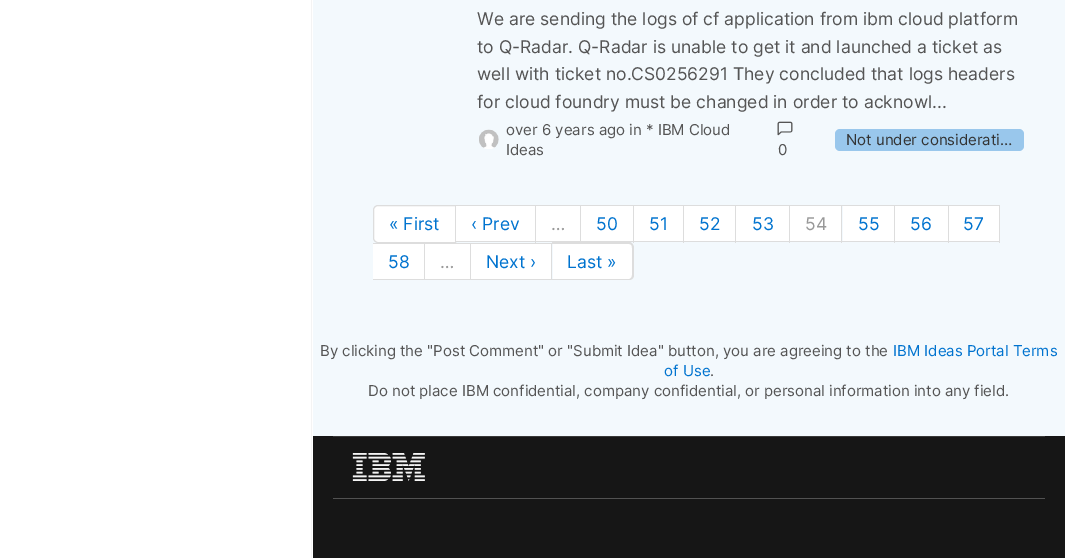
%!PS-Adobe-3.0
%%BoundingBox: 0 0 1065 558
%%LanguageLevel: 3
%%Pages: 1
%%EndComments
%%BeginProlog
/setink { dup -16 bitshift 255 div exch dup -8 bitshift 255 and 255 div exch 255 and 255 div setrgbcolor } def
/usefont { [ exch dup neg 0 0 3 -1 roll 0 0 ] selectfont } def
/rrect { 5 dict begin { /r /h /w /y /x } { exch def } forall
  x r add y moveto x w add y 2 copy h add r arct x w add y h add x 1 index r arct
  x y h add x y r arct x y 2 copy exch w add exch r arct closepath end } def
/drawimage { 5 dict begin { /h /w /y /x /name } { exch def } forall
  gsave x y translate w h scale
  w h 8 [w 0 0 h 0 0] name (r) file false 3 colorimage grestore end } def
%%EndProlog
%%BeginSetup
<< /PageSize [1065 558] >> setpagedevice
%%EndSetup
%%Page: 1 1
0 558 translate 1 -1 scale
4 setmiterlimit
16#F3F9FD setink
0 0 1065 558 rectfill
16#FFFFFF setink
0 0 313 558 rectfill
16#F4F4F4 setink
311 0 1 558 rectfill
/Inter-Regular 17.5 usefont
16#555555 setink
[
    [(We are sending the logs of cf application from ibm cloud platform) 477 25]
    [(to Q-Radar. Q-Radar is unable to get it and launched a ticket as) 477 53]
    [(well with ticket no.CS0256291 They concluded that logs headers) 477 80]
    [(for cloud foundry must be changed in order to acknowl...) 477 108]
] { aload pop moveto show } forall
(img1.raw) 479 129 20 20 drawimage
/Inter-Regular 15 usefont
506 135 moveto (over 6 years ago in * IBM Cloud) show
506 155 moveto (Ideas) show
16#99C7EC setink
835 129 189 22 5 rrect fill
16#333333 setink
846 145 moveto (Not under considerati…) show
(img2.raw) 777 121 16 15 drawimage
16#555555 setink
778 155 moveto (0) show
16#FFFFFF setink
378 205.5 moveto 455.5 205.5 lineto 455.5 242.5 lineto 378 242.5 lineto 375.5 242.5 373.5 240.5 373.5 238 curveto 373.5 210 lineto 373.5 207.5 375.5 205.5 378 205.5 curveto closepath gsave fill grestore
16#DDDDDD setink
stroke
/Inter-Regular 17.5 usefont
16#0073CF setink
389 230 moveto (« First) show
[
    [456 206 79 35 16#FFFFFF]
    [456 205 544 1 16#DDDDDD]
    [535 205 1 38 16#DDDDDD]
    [456 241 80 1 16#DDDDDD]
] { aload pop setink rectfill } forall
16#0073CF setink
471 230 moveto (‹ Prev) show
[
    [536 206 44 35 16#FFFFFF]
    [580 205 1 38 16#DDDDDD]
    [536 241 45 1 16#DDDDDD]
] { aload pop setink rectfill } forall
16#999999 setink
551 230 moveto (…) show
[
    [581 206 52 35 16#FFFFFF]
    [633 205 1 38 16#DDDDDD]
    [581 241 53 1 16#DDDDDD]
] { aload pop setink rectfill } forall
16#0073CF setink
596 230 moveto (50) show
[
    [634 206 49 35 16#FFFFFF]
    [683 205 1 38 16#DDDDDD]
    [634 241 50 1 16#DDDDDD]
] { aload pop setink rectfill } forall
16#0073CF setink
649 230 moveto (51) show
[
    [684 206 51 35 16#FFFFFF]
    [735 205 1 38 16#DDDDDD]
    [684 241 52 1 16#DDDDDD]
] { aload pop setink rectfill } forall
16#0073CF setink
699 230 moveto (52) show
[
    [736 206 53 35 16#FFFFFF]
    [789 205 1 38 16#DDDDDD]
    [736 241 54 1 16#DDDDDD]
] { aload pop setink rectfill } forall
16#0073CF setink
752 230 moveto (53) show
[
    [790 206 51 35 16#FFFFFF]
    [841 205 1 38 16#DDDDDD]
    [790 241 53 1 16#DDDDDD]
] { aload pop setink rectfill } forall
16#999999 setink
805 230 moveto (54) show
[
    [843 206 51 35 16#FFFFFF]
    [894 205 1 38 16#DDDDDD]
    [843 241 52 1 16#DDDDDD]
] { aload pop setink rectfill } forall
16#0073CF setink
858 230 moveto (55) show
[
    [895 206 53 35 16#FFFFFF]
    [948 205 1 38 16#DDDDDD]
    [895 241 54 1 16#DDDDDD]
] { aload pop setink rectfill } forall
16#0073CF setink
910 230 moveto (56) show
[
    [949 206 50 35 16#FFFFFF]
    [999 205 1 38 16#DDDDDD]
    [949 241 51 1 16#DDDDDD]
] { aload pop setink rectfill } forall
16#0073CF setink
963 230 moveto (57) show
[
    [373 244 51 35 16#FFFFFF]
    [373 243 180 1 16#DDDDDD]
    [424 243 1 37 16#DDDDDD]
    [373 279 52 1 16#DDDDDD]
] { aload pop setink rectfill } forall
16#0073CF setink
388 268 moveto (58) show
[
    [425 244 45 35 16#FFFFFF]
    [470 243 1 37 16#DDDDDD]
    [425 279 46 1 16#DDDDDD]
] { aload pop setink rectfill } forall
16#999999 setink
440 268 moveto (…) show
[
    [471 244 80 35 16#FFFFFF]
    [551 243 1 37 16#DDDDDD]
    [471 279 82 1 16#DDDDDD]
] { aload pop setink rectfill } forall
16#0073CF setink
486 268 moveto (Next ›) show
16#FFFFFF setink
553 244 moveto 629 244 lineto 631 244 633 246 633 248 curveto 633 275 lineto 633 277 631 279 629 279 curveto 553 279 lineto closepath fill
16#DDDDDD setink
552 242 moveto 629 242 lineto 632 242 634 245 634 248 curveto 634 275 lineto 634 278 632 280 629 280 curveto 552 280 lineto closepath 552 244 moveto 629 244 lineto 631 244 632 245 632 248 curveto 632 275 lineto 632 277 631 279 629 279 curveto 552 279 lineto closepath eofill
16#0073CF setink
567 268 moveto (Last ») show
/Inter-Regular 15 usefont
16#555555 setink
320 356 moveto (By clicking the "Post Comment" or "Submit Idea" button, you are agreeing to the) show
16#0073CF setink
893 356 moveto (IBM Ideas Portal Terms) show
664 376 moveto (of Use) show
16#555555 setink
710 376 moveto (.) show
368 396 moveto (Do not place IBM confidential, company confidential, or personal information into any field.) show
16#161616 setink
313 436 752 122 rectfill
16#393939 setink
333 436 712 1 rectfill
(img3.raw) 352 453 73 28 drawimage
16#525252 setink
333 498 712 1 rectfill
showpage
%%EOF
